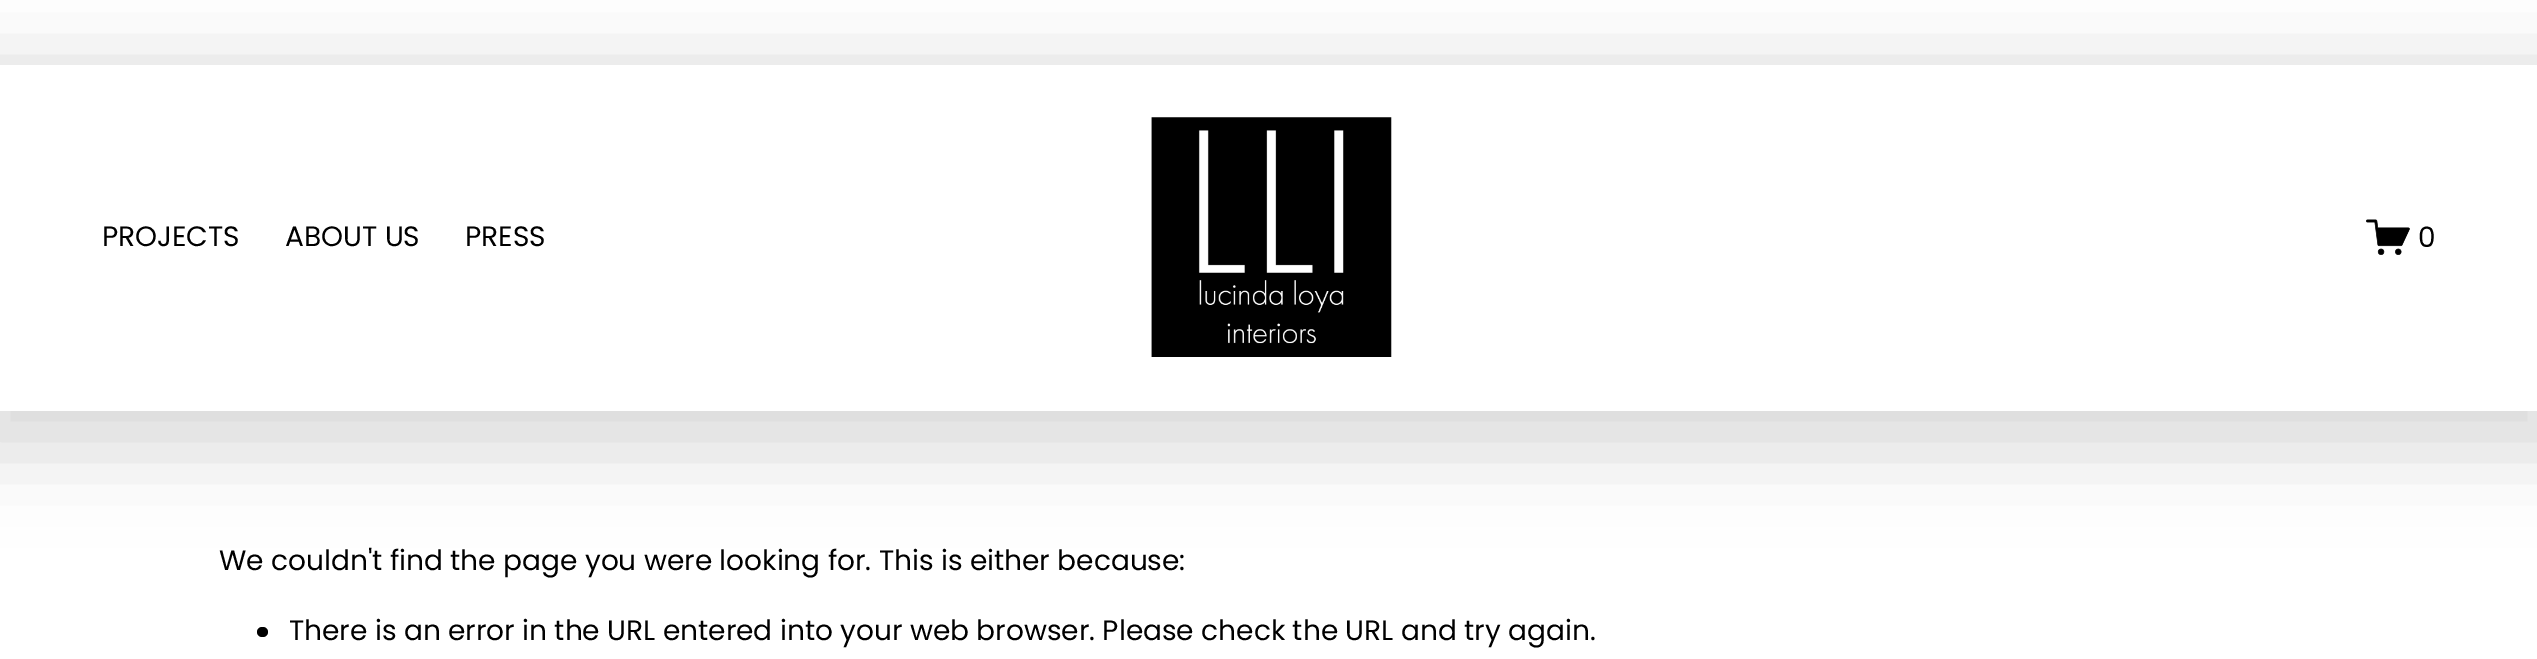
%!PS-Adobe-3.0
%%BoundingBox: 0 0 2537 659
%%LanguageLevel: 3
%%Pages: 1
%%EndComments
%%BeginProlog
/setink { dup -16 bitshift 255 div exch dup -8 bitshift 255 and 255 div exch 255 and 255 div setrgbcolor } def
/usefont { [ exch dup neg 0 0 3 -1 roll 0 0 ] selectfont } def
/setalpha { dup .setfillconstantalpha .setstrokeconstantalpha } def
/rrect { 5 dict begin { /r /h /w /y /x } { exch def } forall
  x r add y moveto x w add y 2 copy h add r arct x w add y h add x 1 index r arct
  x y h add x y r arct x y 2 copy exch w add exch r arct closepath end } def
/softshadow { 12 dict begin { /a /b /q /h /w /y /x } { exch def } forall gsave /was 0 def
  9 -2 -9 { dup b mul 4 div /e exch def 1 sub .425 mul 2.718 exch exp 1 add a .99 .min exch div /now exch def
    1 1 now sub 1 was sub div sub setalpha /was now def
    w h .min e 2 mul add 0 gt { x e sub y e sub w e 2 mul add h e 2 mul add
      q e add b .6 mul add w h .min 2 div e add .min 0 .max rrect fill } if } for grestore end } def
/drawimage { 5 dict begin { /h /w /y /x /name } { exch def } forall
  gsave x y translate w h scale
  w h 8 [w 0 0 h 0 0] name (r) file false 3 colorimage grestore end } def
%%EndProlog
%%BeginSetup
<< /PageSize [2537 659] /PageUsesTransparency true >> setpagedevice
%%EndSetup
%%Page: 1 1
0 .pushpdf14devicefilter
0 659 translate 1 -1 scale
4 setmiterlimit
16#FFFFFF setink
0 0 2537 659 rectfill
gsave
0 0 moveto 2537 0 lineto 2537 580 lineto 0 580 lineto closepath 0 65 moveto 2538 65 lineto 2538 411 lineto 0 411 lineto closepath eoclip newpath
16#D9D9D9 setink
-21 65 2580 388 0 42 1 softshadow
grestore
/Poppins-Regular 28 usefont
16#000000 setink
[
    [(PROJECTS) 102 246]
    [(ABOUT US) 285 246]
    [(PRESS) 465 246]
] { aload pop moveto show } forall
(img1.raw) 1151 117 241 240 drawimage
(img2.raw) 2366 219 44 36 drawimage
2418 247 moveto (0) show
219 570 moveto (We couldn't find the page you were looking for. This is either because:) show
257 627 11 10 5 rrect fill
289 640 moveto (There is an error in the URL entered into your web browser. Please check the URL and try again.) show
.poppdf14devicefilter showpage
%%EOF
